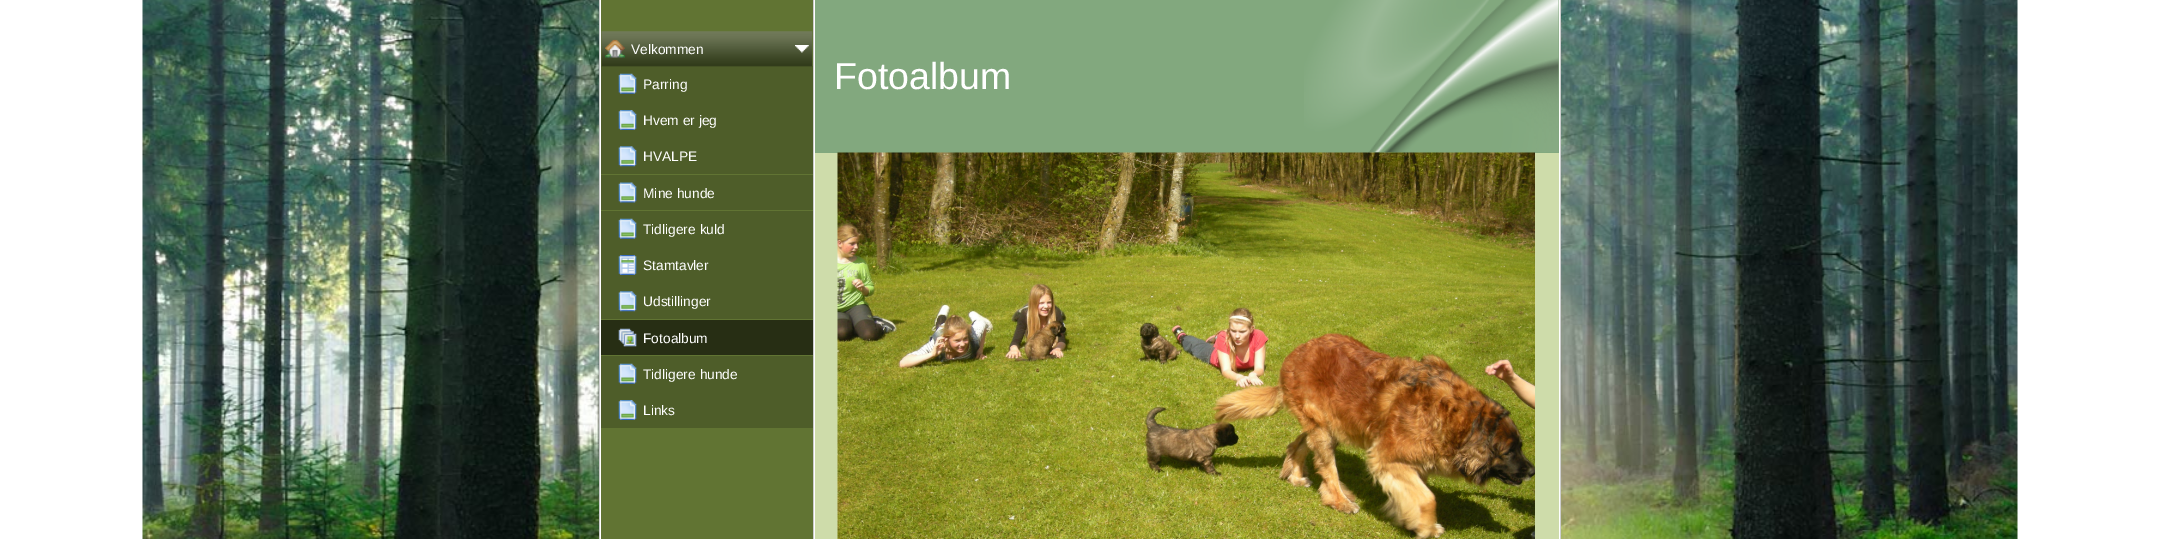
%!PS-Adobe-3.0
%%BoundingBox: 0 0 2158 539
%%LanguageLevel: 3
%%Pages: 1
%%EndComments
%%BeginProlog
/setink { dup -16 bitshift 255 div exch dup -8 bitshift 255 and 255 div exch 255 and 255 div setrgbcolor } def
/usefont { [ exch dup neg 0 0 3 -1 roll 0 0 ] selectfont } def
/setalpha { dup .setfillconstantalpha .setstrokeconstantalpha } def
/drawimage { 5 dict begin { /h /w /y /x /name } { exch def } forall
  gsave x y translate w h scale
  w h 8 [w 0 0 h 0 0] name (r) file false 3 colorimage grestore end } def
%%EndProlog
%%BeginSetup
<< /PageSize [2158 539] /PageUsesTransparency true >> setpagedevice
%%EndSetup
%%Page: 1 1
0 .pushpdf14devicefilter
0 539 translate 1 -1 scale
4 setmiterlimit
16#FFFFFF setink
0 0 2158 539 rectfill
(img1.raw) 142 0 1876 539 drawimage
[
    [600 0 960 539 16#FFFFFF]
    [599 0 1 539 16#CCCCCC]
    [601 0 212 539 16#617433]
] { aload pop setink rectfill } forall
(img2.raw) 601 31 212 36 drawimage
(img3.raw) 605 39 20 19 drawimage
(img4.raw) 795 45 14 8 drawimage
/LiberationSans-Regular 13.75 usefont
16#FFFFFF setink
631 54 moveto (Velkommen) show
0.2 setalpha
16#000000 setink
601 66 212 36 rectfill
1 setalpha
(img5.raw) 618 73 19 21 drawimage
16#FFFFFF setink
643 89 moveto (Parring) show
16#4E5D29 setink
601 102 212 72 rectfill
(img6.raw) 618 110 19 20 drawimage
16#FFFFFF setink
643 125 moveto (Hvem er jeg) show
(img7.raw) 618 146 19 21 drawimage
643 161 moveto (HVALPE) show
16#4E5D29 setink
601 175 212 35 rectfill
(img8.raw) 618 182 19 21 drawimage
16#FFFFFF setink
643 198 moveto (Mine hunde) show
16#4E5D29 setink
601 211 212 108 rectfill
(img9.raw) 618 218 19 21 drawimage
16#FFFFFF setink
643 234 moveto (Tidligere kuld) show
(img10.raw) 618 255 19 20 drawimage
643 270 moveto (Stamtavler) show
(img11.raw) 618 291 19 21 drawimage
643 306 moveto (Udstillinger) show
16#272E14 setink
601 320 212 35 rectfill
(img12.raw) 618 328 19 19 drawimage
16#FFFFFF setink
643 343 moveto (Fotoalbum) show
16#4E5D29 setink
601 356 212 72 rectfill
(img9.raw) 618 363 19 21 drawimage
16#FFFFFF setink
643 379 moveto (Tidligere hunde) show
(img6.raw) 618 400 19 20 drawimage
643 415 moveto (Links) show
[
    [813 0 1 539 16#CCCCCC]
    [815 153 744 386 16#CEDCAA]
    [815 0 744 153 16#82A87E]
] { aload pop setink rectfill } forall
/LiberationSans-Regular 37.5 usefont
16#FFFFFF setink
834 89 moveto (Fotoalbum) show
(img13.raw) 1304 0 255 153 drawimage
(img14.raw) 837 152 698 387 drawimage
16#CCCCCC setink
1560 0 1 539 rectfill
.poppdf14devicefilter showpage
%%EOF
